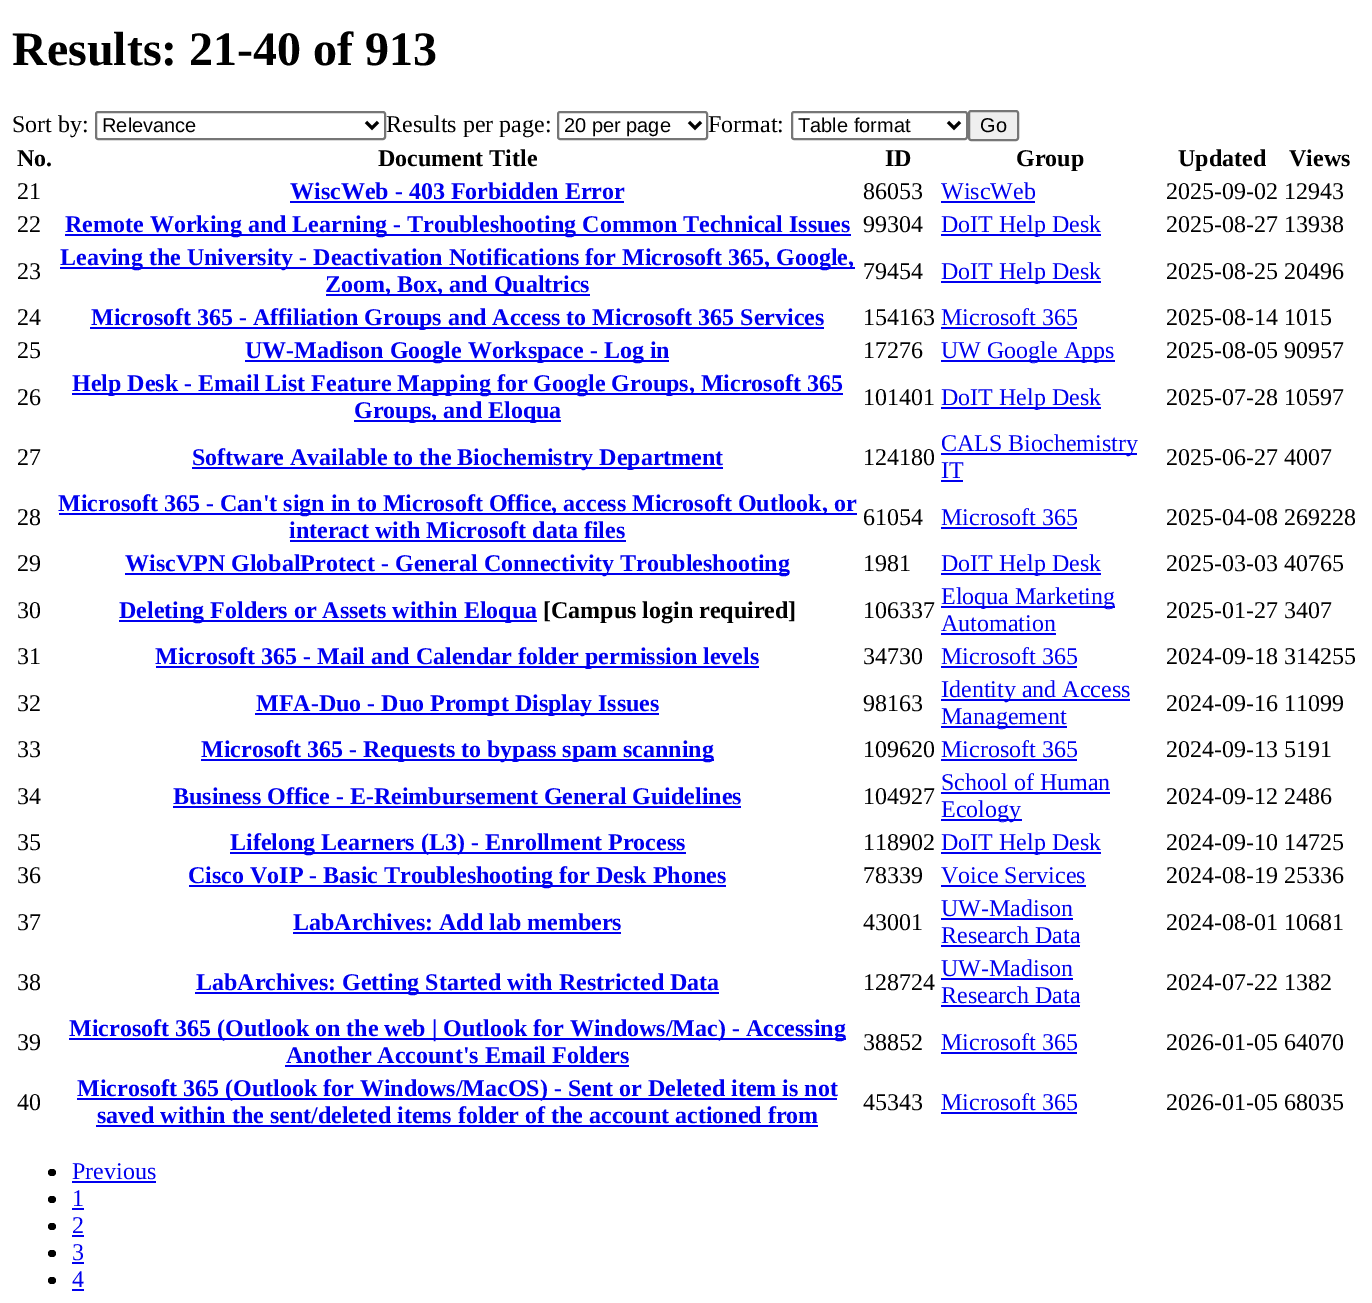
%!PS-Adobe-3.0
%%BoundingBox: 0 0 1372 1303
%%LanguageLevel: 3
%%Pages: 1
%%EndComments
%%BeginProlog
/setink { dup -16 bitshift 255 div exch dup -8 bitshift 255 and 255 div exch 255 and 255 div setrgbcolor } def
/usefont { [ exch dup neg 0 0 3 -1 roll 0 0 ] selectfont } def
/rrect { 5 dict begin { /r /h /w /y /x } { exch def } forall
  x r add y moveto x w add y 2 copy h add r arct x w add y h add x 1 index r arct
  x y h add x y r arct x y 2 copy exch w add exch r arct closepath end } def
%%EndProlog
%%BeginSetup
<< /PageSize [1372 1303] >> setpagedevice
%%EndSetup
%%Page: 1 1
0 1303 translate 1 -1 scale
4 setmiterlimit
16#FFFFFF setink
0 0 1372 1303 rectfill
/LiberationSerif-Bold 48 usefont
16#000000 setink
12 65 moveto (Results: 21-40 of 913) show
/LiberationSerif-Regular 24 usefont
12 132 moveto (Sort by:) show
16#767676 setink
2 setlinewidth
96 112 289 27 2 rrect stroke
16#000000 setink
3 setlinewidth
366 122 moveto 372 128 lineto 378 122 lineto stroke
/LiberationSans-Regular 20 usefont
102 132 moveto (Relevance) show
/LiberationSerif-Regular 24 usefont
386 132 moveto (Results per page:) show
16#767676 setink
2 setlinewidth
558 112 149 27 2 rrect stroke
16#000000 setink
3 setlinewidth
689 122 moveto 695 128 lineto 701 122 lineto stroke
/LiberationSans-Regular 20 usefont
564 132 moveto (20 per page) show
/LiberationSerif-Regular 24 usefont
708 132 moveto (Format:) show
16#767676 setink
2 setlinewidth
792 112 175 27 2 rrect stroke
16#000000 setink
3 setlinewidth
948 122 moveto 954 128 lineto 960 122 lineto stroke
/LiberationSans-Regular 20 usefont
798 132 moveto (Table format) show
16#EFEFEF setink
969 111 49 29 2 rrect gsave fill grestore
16#767676 setink
2 setlinewidth
stroke
16#000000 setink
980 132 moveto (Go) show
/LiberationSerif-Bold 24 usefont
[
    [(No.) 17 166]
    [(Document Title) 378 166]
    [(ID) 885 166]
    [(Group) 1016 166]
    [(Updated) 1178 166]
    [(Views) 1289 166]
] { aload pop moveto show } forall
/LiberationSerif-Regular 24 usefont
17 199 moveto (21) show
/LiberationSerif-Bold 24 usefont
16#0000EE setink
290 199 moveto (WiscWeb - 403 Forbidden Error) show
290 201 334 2 rectfill
/LiberationSerif-Regular 24 usefont
16#000000 setink
863 199 moveto (86053) show
16#0000EE setink
941 199 moveto (WiscWeb) show
941 201 94 2 rectfill
16#000000 setink
1166 199 moveto (2025-09-02 12943) show
17 232 moveto (22) show
16#0000EE setink
65 234 786 2 rectfill
/LiberationSerif-Bold 24 usefont
65 232 moveto (Remote Working and Learning - Troubleshooting Common Technical Issues) show
/LiberationSerif-Regular 24 usefont
16#000000 setink
863 232 moveto (99304) show
16#0000EE setink
941 234 160 2 rectfill
941 232 moveto (DoIT Help Desk) show
16#000000 setink
1166 232 moveto (2025-08-27 13938) show
17 279 moveto (23) show
16#0000EE setink
60 267 795 2 rectfill
/LiberationSerif-Bold 24 usefont
60 265 moveto (Leaving the University - Deactivation Notifications for Microsoft 365, Google,) show
326 294 264 2 rectfill
325 292 moveto (Zoom, Box, and Qualtrics) show
/LiberationSerif-Regular 24 usefont
16#000000 setink
863 279 moveto (79454) show
16#0000EE setink
941 281 160 2 rectfill
941 279 moveto (DoIT Help Desk) show
16#000000 setink
1166 279 moveto (2025-08-25 20496) show
17 325 moveto (24) show
16#0000EE setink
90 327 734 2 rectfill
/LiberationSerif-Bold 24 usefont
91 325 moveto (Microsoft 365 - Affiliation Groups and Access to Microsoft 365 Services) show
/LiberationSerif-Regular 24 usefont
16#000000 setink
863 325 moveto (154163) show
16#0000EE setink
941 325 moveto (Microsoft 365) show
941 327 136 2 rectfill
16#000000 setink
1166 325 moveto (2025-08-14 1015) show
17 358 moveto (25) show
16#0000EE setink
245 360 424 2 rectfill
/LiberationSerif-Bold 24 usefont
245 358 moveto (UW-Madison Google Workspace - Log in) show
/LiberationSerif-Regular 24 usefont
16#000000 setink
863 358 moveto (17276) show
16#0000EE setink
941 360 174 2 rectfill
941 358 moveto (UW Google Apps) show
16#000000 setink
1166 358 moveto (2025-08-05 90957) show
17 405 moveto (26) show
16#0000EE setink
72 393 771 2 rectfill
/LiberationSerif-Bold 24 usefont
72 391 moveto (Help Desk - Email List Feature Mapping for Google Groups, Microsoft 365) show
354 420 207 2 rectfill
354 418 moveto (Groups, and Eloqua) show
/LiberationSerif-Regular 24 usefont
16#000000 setink
863 405 moveto (101401) show
16#0000EE setink
941 407 160 2 rectfill
941 405 moveto (DoIT Help Desk) show
16#000000 setink
1166 405 moveto (2025-07-28 10597) show
17 465 moveto (27) show
16#0000EE setink
192 467 531 2 rectfill
/LiberationSerif-Bold 24 usefont
192 465 moveto (Software Available to the Biochemistry Department) show
/LiberationSerif-Regular 24 usefont
16#000000 setink
863 465 moveto (124180) show
16#0000EE setink
941 453 196 2 rectfill
941 451 moveto (CALS Biochemistry) show
941 478 moveto (IT) show
941 480 22 2 rectfill
16#000000 setink
1166 465 moveto (2025-06-27 4007) show
17 525 moveto (28) show
16#0000EE setink
59 513 798 2 rectfill
/LiberationSerif-Bold 24 usefont
58 511 moveto (Microsoft 365 - Can't sign in to Microsoft Office, access Microsoft Outlook, or) show
289 538 moveto (interact with Microsoft data files) show
290 540 336 2 rectfill
/LiberationSerif-Regular 24 usefont
16#000000 setink
863 525 moveto (61054) show
16#0000EE setink
941 525 moveto (Microsoft 365) show
941 527 136 2 rectfill
16#000000 setink
1166 525 moveto (2025-04-08 269228) show
17 571 moveto (29) show
16#0000EE setink
125 573 664 2 rectfill
/LiberationSerif-Bold 24 usefont
125 571 moveto (WiscVPN GlobalProtect - General Connectivity Troubleshooting) show
/LiberationSerif-Regular 24 usefont
16#000000 setink
863 571 moveto (1981) show
16#0000EE setink
941 573 160 2 rectfill
941 571 moveto (DoIT Help Desk) show
16#000000 setink
1166 571 moveto (2025-03-03 40765) show
17 618 moveto (30) show
16#0000EE setink
119 620 418 2 rectfill
/LiberationSerif-Bold 24 usefont
119 618 moveto (Deleting Folders or Assets within Eloqua) show
16#000000 setink
543 618 moveto ([Campus login required]) show
/LiberationSerif-Regular 24 usefont
863 618 moveto (106337) show
16#0000EE setink
941 606 174 2 rectfill
941 604 moveto (Eloqua Marketing) show
941 631 moveto (Automation) show
941 633 115 2 rectfill
16#000000 setink
1166 618 moveto (2025-01-27 3407) show
17 664 moveto (31) show
16#0000EE setink
156 666 603 2 rectfill
/LiberationSerif-Bold 24 usefont
155 664 moveto (Microsoft 365 - Mail and Calendar folder permission levels) show
/LiberationSerif-Regular 24 usefont
16#000000 setink
863 664 moveto (34730) show
16#0000EE setink
941 664 moveto (Microsoft 365) show
941 666 136 2 rectfill
16#000000 setink
1166 664 moveto (2024-09-18 314255) show
17 711 moveto (32) show
16#0000EE setink
255 713 404 2 rectfill
/LiberationSerif-Bold 24 usefont
256 711 moveto (MFA-Duo - Duo Prompt Display Issues) show
/LiberationSerif-Regular 24 usefont
16#000000 setink
863 711 moveto (98163) show
16#0000EE setink
941 699 189 2 rectfill
941 697 moveto (Identity and Access) show
941 726 126 2 rectfill
941 724 moveto (Management) show
16#000000 setink
1166 711 moveto (2024-09-16 11099) show
17 757 moveto (33) show
16#0000EE setink
201 759 513 2 rectfill
/LiberationSerif-Bold 24 usefont
201 757 moveto (Microsoft 365 - Requests to bypass spam scanning) show
/LiberationSerif-Regular 24 usefont
16#000000 setink
863 757 moveto (109620) show
16#0000EE setink
941 757 moveto (Microsoft 365) show
941 759 136 2 rectfill
16#000000 setink
1166 757 moveto (2024-09-13 5191) show
17 804 moveto (34) show
/LiberationSerif-Bold 24 usefont
16#0000EE setink
173 804 moveto (Business Office - E-Reimbursement General Guidelines) show
173 806 568 2 rectfill
/LiberationSerif-Regular 24 usefont
16#000000 setink
863 804 moveto (104927) show
16#0000EE setink
941 790 moveto (School of Human) show
941 792 169 2 rectfill
941 819 81 2 rectfill
941 817 moveto (Ecology) show
16#000000 setink
1166 804 moveto (2024-09-12 2486) show
17 850 moveto (35) show
16#0000EE setink
230 852 456 2 rectfill
/LiberationSerif-Bold 24 usefont
230 850 moveto (Lifelong Learners \(L3\) - Enrollment Process) show
/LiberationSerif-Regular 24 usefont
16#000000 setink
863 850 moveto (118902) show
16#0000EE setink
941 852 160 2 rectfill
941 850 moveto (DoIT Help Desk) show
16#000000 setink
1166 850 moveto (2024-09-10 14725) show
17 883 moveto (36) show
16#0000EE setink
189 885 537 2 rectfill
/LiberationSerif-Bold 24 usefont
188 883 moveto (Cisco VoIP - Basic Troubleshooting for Desk Phones) show
/LiberationSerif-Regular 24 usefont
16#000000 setink
863 883 moveto (78339) show
16#0000EE setink
941 883 moveto (Voice Services) show
941 885 145 2 rectfill
16#000000 setink
1166 883 moveto (2024-08-19 25336) show
17 930 moveto (37) show
/LiberationSerif-Bold 24 usefont
16#0000EE setink
293 930 moveto (LabArchives: Add lab members) show
293 932 328 2 rectfill
/LiberationSerif-Regular 24 usefont
16#000000 setink
863 930 moveto (43001) show
16#0000EE setink
941 916 moveto (UW-Madison) show
941 918 132 2 rectfill
941 943 moveto (Research Data) show
941 945 139 2 rectfill
16#000000 setink
1166 930 moveto (2024-08-01 10681) show
17 990 moveto (38) show
16#0000EE setink
195 992 524 2 rectfill
/LiberationSerif-Bold 24 usefont
196 990 moveto (LabArchives: Getting Started with Restricted Data) show
/LiberationSerif-Regular 24 usefont
16#000000 setink
863 990 moveto (128724) show
16#0000EE setink
941 976 moveto (UW-Madison) show
941 978 132 2 rectfill
941 1003 moveto (Research Data) show
941 1005 139 2 rectfill
16#000000 setink
1166 990 moveto (2024-07-22 1382) show
17 1050 moveto (39) show
16#0000EE setink
69 1038 777 2 rectfill
/LiberationSerif-Bold 24 usefont
69 1036 moveto (Microsoft 365 \(Outlook on the web | Outlook for Windows/Mac\) - Accessing) show
286 1063 moveto (Another Account's Email Folders) show
285 1065 344 2 rectfill
/LiberationSerif-Regular 24 usefont
16#000000 setink
863 1050 moveto (38852) show
16#0000EE setink
941 1050 moveto (Microsoft 365) show
941 1052 136 2 rectfill
16#000000 setink
1166 1050 moveto (2026-01-05 64070) show
17 1110 moveto (40) show
16#0000EE setink
77 1098 760 2 rectfill
/LiberationSerif-Bold 24 usefont
77 1096 moveto (Microsoft 365 \(Outlook for Windows/MacOS\) - Sent or Deleted item is not) show
97 1123 moveto (saved within the sent/deleted items folder of the account actioned from) show
96 1125 722 2 rectfill
/LiberationSerif-Regular 24 usefont
16#000000 setink
863 1110 moveto (45343) show
16#0000EE setink
941 1110 moveto (Microsoft 365) show
941 1112 136 2 rectfill
16#000000 setink
1166 1110 moveto (2026-01-05 68035) show
48 1169 8 7 3.5 rrect fill
16#0000EE setink
72 1179 moveto (Previous) show
72 1181 84 2 rectfill
16#000000 setink
48 1196 8 7 3.5 rrect fill
16#0000EE setink
72 1206 moveto (1) show
72 1208 12 2 rectfill
16#000000 setink
48 1223 8 7 3.5 rrect fill
16#0000EE setink
72 1233 moveto (2) show
72 1235 12 2 rectfill
16#000000 setink
48 1250 8 7 3.5 rrect fill
16#0000EE setink
72 1260 moveto (3) show
72 1262 12 2 rectfill
16#000000 setink
48 1277 8 7 3.5 rrect fill
16#0000EE setink
72 1287 moveto (4) show
72 1289 12 2 rectfill
showpage
%%EOF
